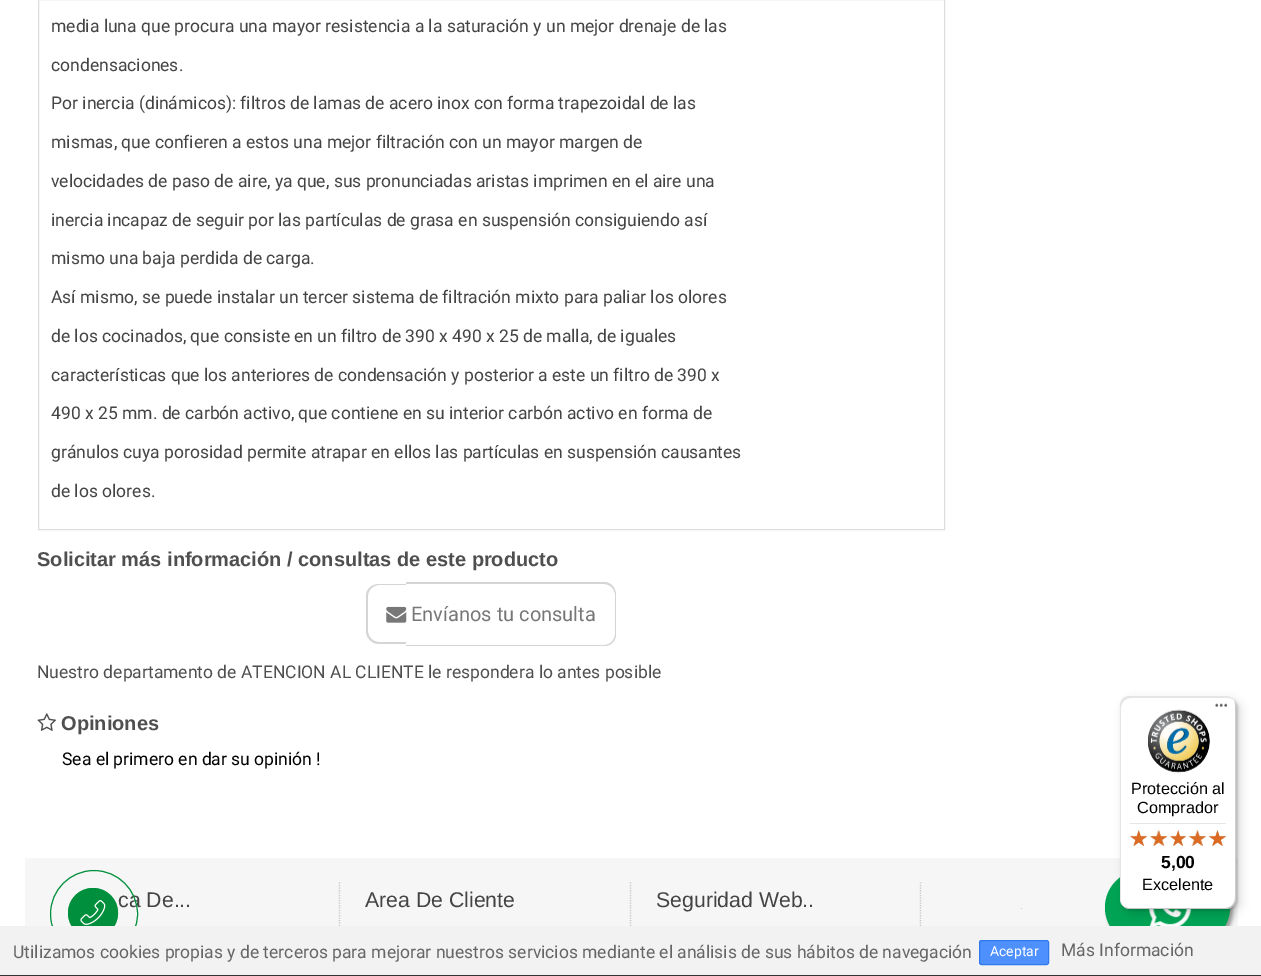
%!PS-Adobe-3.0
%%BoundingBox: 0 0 1261 976
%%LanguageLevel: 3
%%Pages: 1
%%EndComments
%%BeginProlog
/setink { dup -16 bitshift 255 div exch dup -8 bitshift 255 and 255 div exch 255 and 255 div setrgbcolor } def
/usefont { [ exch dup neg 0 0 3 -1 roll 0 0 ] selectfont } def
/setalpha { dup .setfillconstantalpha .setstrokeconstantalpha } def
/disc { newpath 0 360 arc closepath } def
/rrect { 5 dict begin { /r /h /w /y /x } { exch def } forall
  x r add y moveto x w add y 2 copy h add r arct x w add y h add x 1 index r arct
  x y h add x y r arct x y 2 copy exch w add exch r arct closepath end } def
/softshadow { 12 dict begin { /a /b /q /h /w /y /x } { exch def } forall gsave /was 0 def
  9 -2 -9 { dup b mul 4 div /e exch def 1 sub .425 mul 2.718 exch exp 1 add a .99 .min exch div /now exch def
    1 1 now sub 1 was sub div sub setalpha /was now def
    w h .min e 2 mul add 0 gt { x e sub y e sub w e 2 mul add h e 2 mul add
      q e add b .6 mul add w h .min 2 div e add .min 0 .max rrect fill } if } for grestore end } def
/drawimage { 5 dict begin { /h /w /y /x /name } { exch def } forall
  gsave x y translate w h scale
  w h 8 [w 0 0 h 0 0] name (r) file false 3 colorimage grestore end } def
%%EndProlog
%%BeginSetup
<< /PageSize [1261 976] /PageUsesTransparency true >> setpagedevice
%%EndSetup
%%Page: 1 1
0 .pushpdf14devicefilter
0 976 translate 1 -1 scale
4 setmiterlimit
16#FFFFFF setink
0 0 1261 976 rectfill
16#DDDDDD setink
38.5 -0.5 906 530 rectstroke
/Roboto-Regular 17.5 usefont
16#444444 setink
[
    [(media luna que procura una mayor resistencia a la saturación y un mejor drenaje de las) 51 32]
    [(condensaciones.) 51 71]
    [(Por inercia \(dinámicos\): filtros de lamas de acero inox con forma trapezoidal de las) 51 109]
    [(mismas, que confieren a estos una mejor filtración con un mayor margen de) 51 148]
    [(velocidades de paso de aire, ya que, sus pronunciadas aristas imprimen en el aire una) 51 187]
    [(inercia incapaz de seguir por las partículas de grasa en suspensión consiguiendo así) 51 226]
    [(mismo una baja perdida de carga.) 51 264]
    [(Así mismo, se puede instalar un tercer sistema de filtración mixto para paliar los olores) 51 303]
    [(de los cocinados, que consiste en un filtro de 390 x 490 x 25 de malla, de iguales) 51 342]
    [(características que los anteriores de condensación y posterior a este un filtro de 390 x) 51 381]
    [(490 x 25 mm. de carbón activo, que contiene en su interior carbón activo en forma de) 51 419]
    [(gránulos cuya porosidad permite atrapar en ellos las partículas en suspensión causantes) 51 458]
    [(de los olores.) 51 497]
] { aload pop moveto show } forall
/LiberationSans-Bold 20 usefont
16#4F4F4F setink
37 566 moveto (Solicitar más información / consultas de este producto) show
16#D6D4D4 setink
379 584 moveto 406 584 lineto 406 644 lineto 379 644 lineto 372 644 366 638 366 631 curveto 366 596 lineto 366 589 372 584 379 584 curveto closepath 379 585 moveto 406 585 lineto 406 642 lineto 379 642 lineto 373 642 368 637 368 631 curveto 368 596 lineto 368 590 373 585 379 585 curveto closepath eofill
406 582 moveto 604 582 lineto 611 582 616 588 616 595 curveto 616 634 lineto 616 641 611 646 604 646 curveto 406 646 lineto closepath 406 584 moveto 604 584 lineto 610 584 615 589 615 595 curveto 615 634 lineto 615 640 610 645 604 645 curveto 406 645 lineto closepath eofill
(img1.raw) 386 606 21 17 drawimage
/Roboto-Regular 20 usefont
16#777777 setink
411 621 moveto (Envíanos tu consulta) show
/Roboto-Regular 17.5 usefont
16#4F4F4F setink
37 678 moveto (Nuestro departamento de ATENCION AL CLIENTE le respondera lo antes posible) show
(img2.raw) 37 713 19 18 drawimage
/LiberationSans-Bold 20 usefont
61 730 moveto (Opiniones) show
/Roboto-Regular 17.5 usefont
16#000000 setink
62 765 moveto (Sea el primero en dar su opinión !) show
16#F6F6F6 setink
25 858 1213 68 rectfill
16#C8C8C8 setink
1.2 setlinewidth
[1.25 1.25] 0 setdash
339.5 882.5 moveto 339.5 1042.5 lineto stroke
/LiberationSans-Regular 21.25 usefont
16#444444 setink
118 907 moveto (ca De...) show
16#C8C8C8 setink
630.5 882.5 moveto 630.5 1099 lineto stroke
16#444444 setink
365 907 moveto (Area De Cliente) show
16#C8C8C8 setink
920.5 882.5 moveto 920.5 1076 lineto stroke
16#444444 setink
656 907 moveto (Seguridad Web..) show
16#C8C8C8 setink
1021 908 1 1 rectfill
16#999999 setink
1108 873 125 75 37.5 2 1 softshadow
16#00A353 setink
1105 870 125 75 37.5 rrect fill
(img3.raw) 1149 909 42 17 drawimage
0.5 setalpha
16#008F3C setink
1 setlinewidth
[] 0 setdash
93 913 24.5 disc stroke
1 setalpha
94 914 43.5 disc stroke
93 913 25 disc fill
16#F2F2F2 setink
0 926 1261 49 rectfill
16#333333 setink
0 975 1261 1 rectfill
/Roboto-Regular 17.5 usefont
16#666666 setink
13 958 moveto (Utilizamos cookies propias y de terceros para mejorar nuestros servicios mediante el análisis de sus hábitos de navegación) show
16#4D90FE setink
979.5 940.5 69 24 2 rrect gsave fill grestore
16#3079ED setink
stroke
/Roboto-Regular 14 usefont
16#FFFFFF setink
990 956 moveto (Aceptar) show
/Roboto-Regular 17.5 usefont
16#666666 setink
1061 956 moveto (Más Información) show
16#000000 setink
1124 700 116 213 10 5 0.15 softshadow
1121 698 117 212 10 1 0.15 softshadow
16#FFFFFF setink
1120 696 116 213 10 rrect fill
0.1 setalpha
16#000000 setink
1131 698 moveto 1228 698 lineto 1230 698 1232 699 1234 700 curveto 1232 698 1229 696 1226 696 curveto 1130 696 lineto 1124 696 1120 700 1120 706 curveto 1120 899 lineto 1120 902 1121 905 1123 907 curveto 1122 905 1121 903 1121 900 curveto 1121 708 lineto 1121 702 1126 698 1131 698 curveto closepath fill
0.2 setalpha
1122 906 moveto 1124 908 1127 909 1130 909 curveto 1226 909 lineto 1232 909 1236 905 1236 899 curveto 1236 706 lineto 1236 704 1235 701 1234 700 curveto 1235 701 1235 703 1235 705 curveto 1235 898 lineto 1235 903 1231 908 1225 908 curveto 1129 908 lineto 1126 908 1124 907 1122 906 curveto closepath fill
1 setalpha
(img4.raw) 1215 703 13 4 drawimage
0.2 setalpha
16#323232 setink
1122 905 moveto 1124 908 1127 909 1130 909 curveto 1226 909 lineto 1232 909 1236 905 1236 899 curveto 1236 898 lineto 1236 904 1231 908 1226 908 curveto 1129 908 lineto 1127 908 1124 907 1122 905 curveto closepath fill
0.3 setalpha
16#FFFFFF setink
1122 905 moveto 1124 908 1127 909 1130 909 curveto 1226 909 lineto 1232 909 1236 905 1236 899 curveto 1236 898 lineto 1236 904 1231 908 1226 908 curveto 1129 908 lineto 1127 908 1124 907 1122 905 curveto closepath fill
1 setalpha
(img5.raw) 1148 709 62 64 drawimage
/LiberationSans-Regular 16.25 usefont
16#000000 setink
1131 794 moveto (Protección al) show
1137 813 moveto (Comprador) show
16#E5E5E5 setink
1130 823 96 1 rectfill
(img6.raw) 1130 830 17 16 drawimage
(img7.raw) 1150 830 17 16 drawimage
(img8.raw) 1170 830 16 16 drawimage
(img9.raw) 1188 830 18 16 drawimage
(img10.raw) 1209 830 17 16 drawimage
(img11.raw) 1130 830 17 16 drawimage
(img12.raw) 1149 830 19 16 drawimage
(img13.raw) 1170 830 16 16 drawimage
(img14.raw) 1188 830 18 16 drawimage
(img15.raw) 1209 830 17 16 drawimage
/LiberationSans-Bold 17.5 usefont
16#000000 setink
1161 868 moveto (5,00) show
/LiberationSans-Regular 16.25 usefont
1142 890 moveto (Excelente) show
(img16.raw) 80 900 26 25 drawimage
.poppdf14devicefilter showpage
%%EOF
